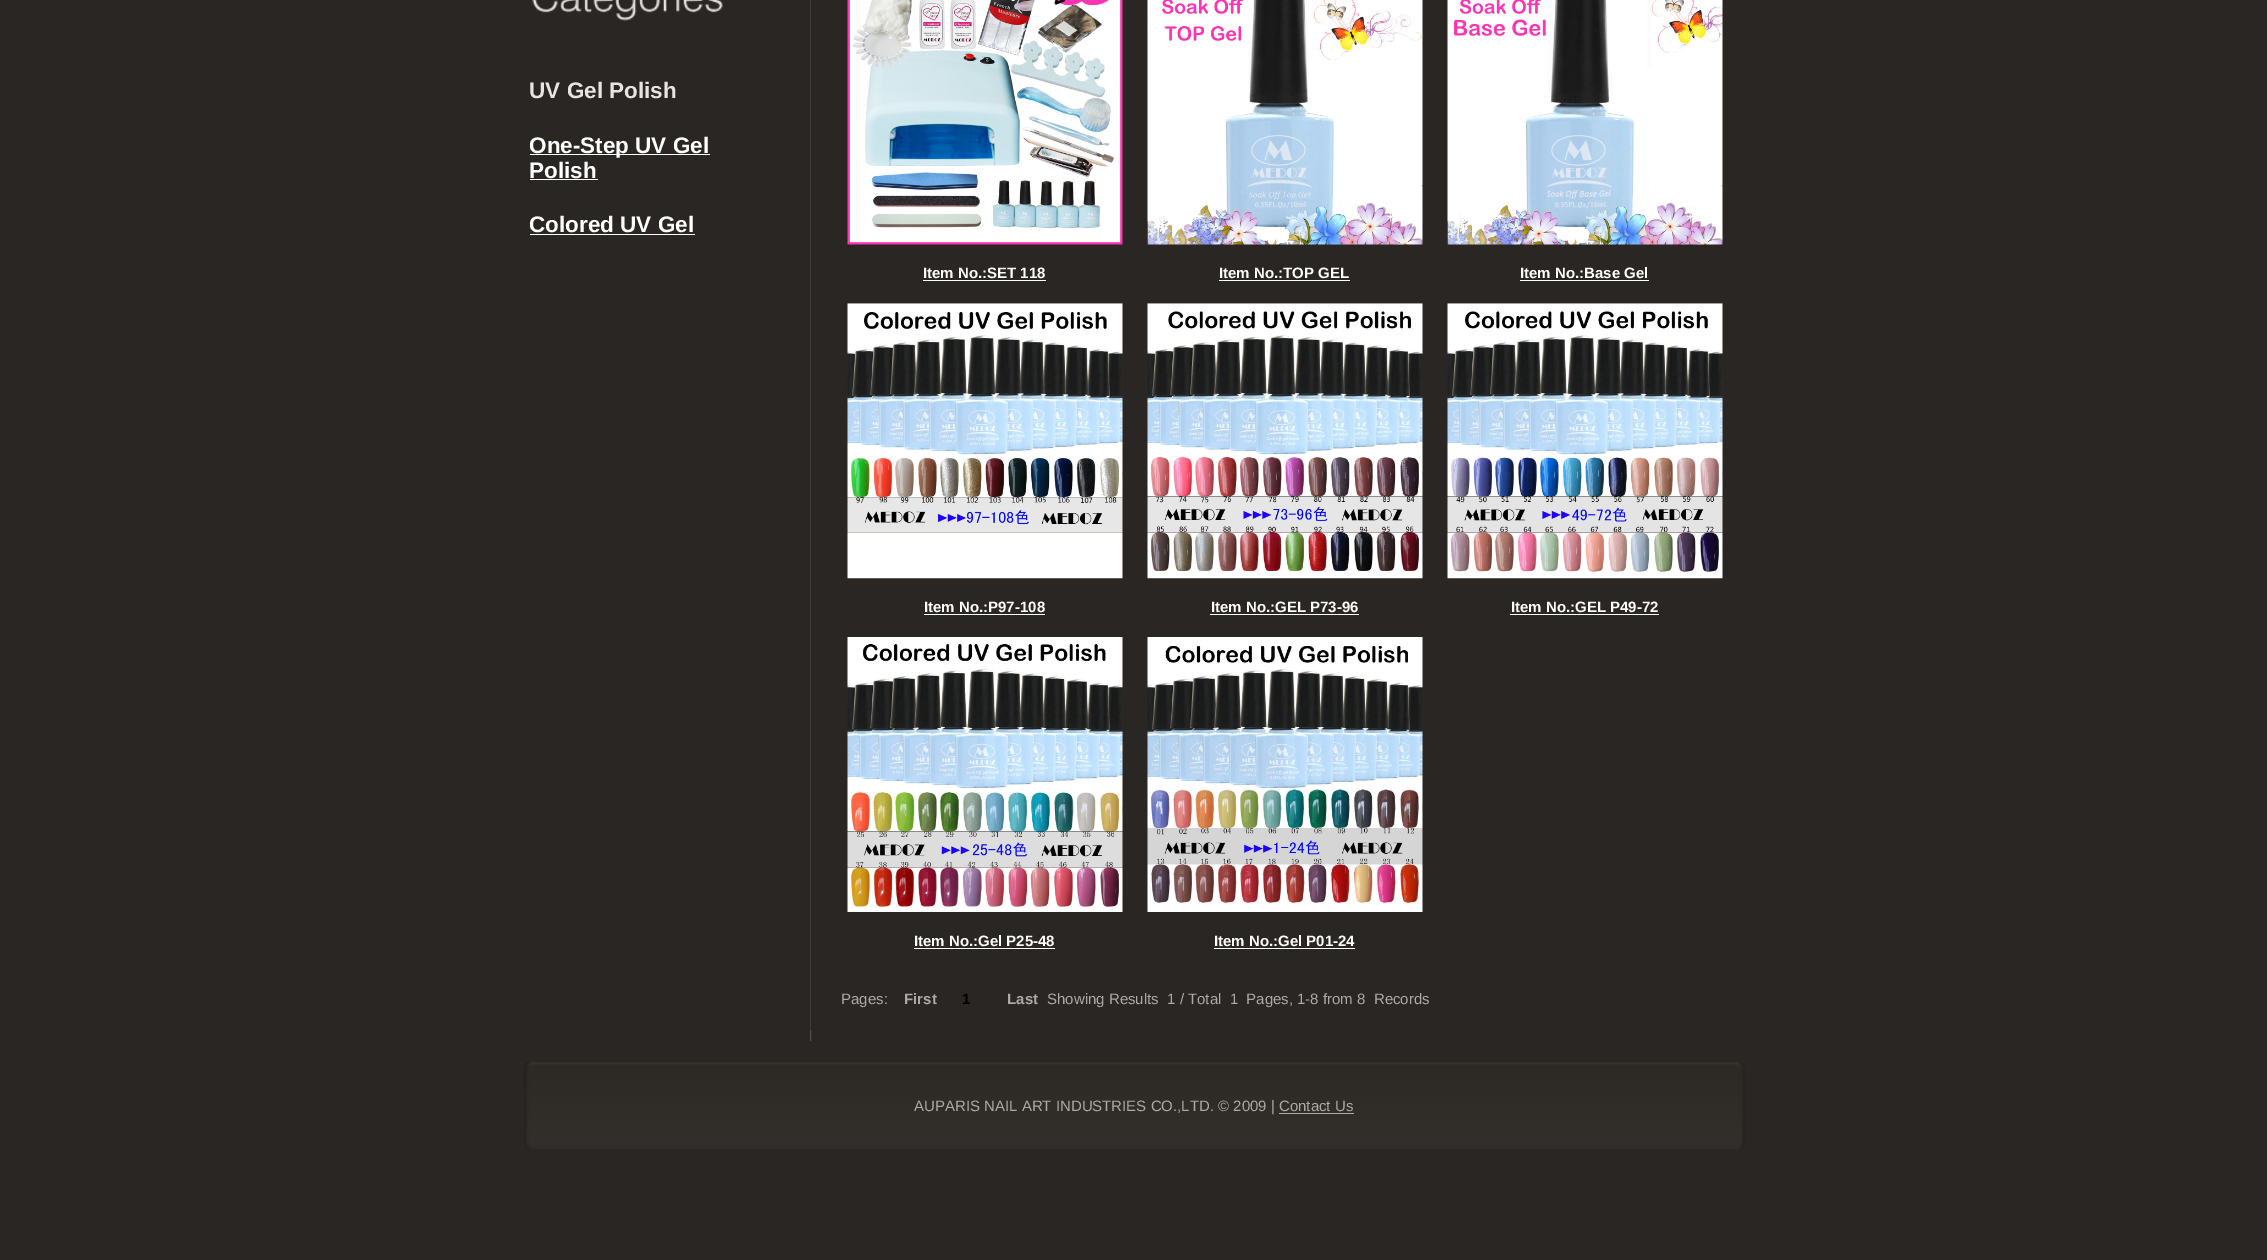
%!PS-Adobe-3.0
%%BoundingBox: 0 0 2267 1260
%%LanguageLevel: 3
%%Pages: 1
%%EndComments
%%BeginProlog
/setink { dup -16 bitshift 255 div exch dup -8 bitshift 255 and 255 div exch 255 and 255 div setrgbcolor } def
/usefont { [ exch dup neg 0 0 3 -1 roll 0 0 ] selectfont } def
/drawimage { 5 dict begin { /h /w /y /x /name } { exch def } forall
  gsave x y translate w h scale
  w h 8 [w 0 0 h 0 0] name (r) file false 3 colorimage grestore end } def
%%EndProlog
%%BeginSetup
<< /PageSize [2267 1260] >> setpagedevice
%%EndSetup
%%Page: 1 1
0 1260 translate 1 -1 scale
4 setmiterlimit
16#292623 setink
0 0 2267 1260 rectfill
(img1.raw) 532 0 191 21 drawimage
/LiberationSans-Bold 22.5 usefont
16#E6E5E4 setink
529 98 moveto (UV Gel Polish) show
16#FFFFFF setink
530 154 180 1 rectfill
529 153 moveto (One-Step UV Gel) show
529 178 moveto (Polish) show
530 179 68 1 rectfill
529 232 moveto (Colored UV Gel) show
530 234 165 1 rectfill
16#3F3C39 setink
810 0 1 1041 rectfill
(img2.raw) 810 1030 2 11 drawimage
(img3.raw) 847 0 276 245 drawimage
/LiberationSans-Bold 15 usefont
16#FFFFFF setink
923 278 moveto (Item No.:SET 118) show
923 280 123 1 rectfill
(img4.raw) 1147 0 276 245 drawimage
1219 278 moveto (Item No.:TOP GEL) show
1219 280 131 1 rectfill
(img5.raw) 1447 0 276 245 drawimage
1520 278 moveto (Item No.:Base Gel) show
1520 280 129 1 rectfill
(img6.raw) 847 303 276 276 drawimage
924 612 moveto (Item No.:P97-108) show
924 614 121 1 rectfill
(img7.raw) 1147 303 276 276 drawimage
1211 612 moveto (Item No.:GEL P73-96) show
1210 614 149 1 rectfill
(img8.raw) 1447 303 276 276 drawimage
1511 612 moveto (Item No.:GEL P49-72) show
1510 614 149 1 rectfill
(img9.raw) 847 637 276 275 drawimage
914 946 moveto (Item No.:Gel P25-48) show
914 948 141 1 rectfill
(img10.raw) 1147 637 276 275 drawimage
1214 946 moveto (Item No.:Gel P01-24) show
1214 948 141 1 rectfill
/LiberationSans-Regular 15 usefont
16#ACA9A6 setink
841 1004 moveto (Pages:) show
/LiberationSans-Bold 15 usefont
904 1004 moveto (First) show
16#000000 setink
962 1004 moveto (1) show
16#ACA9A6 setink
1007 1004 moveto (Last) show
/LiberationSans-Regular 15 usefont
1047 1004 moveto (Showing Results  1 / Total  1  Pages, 1-8 from 8  Records) show
(img11.raw) 522 1062 1216 87 drawimage
(img12.raw) 523 1062 9 87 drawimage
(img13.raw) 1738 1062 8 87 drawimage
914 1111 moveto (AUPARIS NAIL ART INDUSTRIES CO.,LTD. © 2009 | Contact Us) show
1279 1113 75 1 rectfill
showpage
%%EOF
